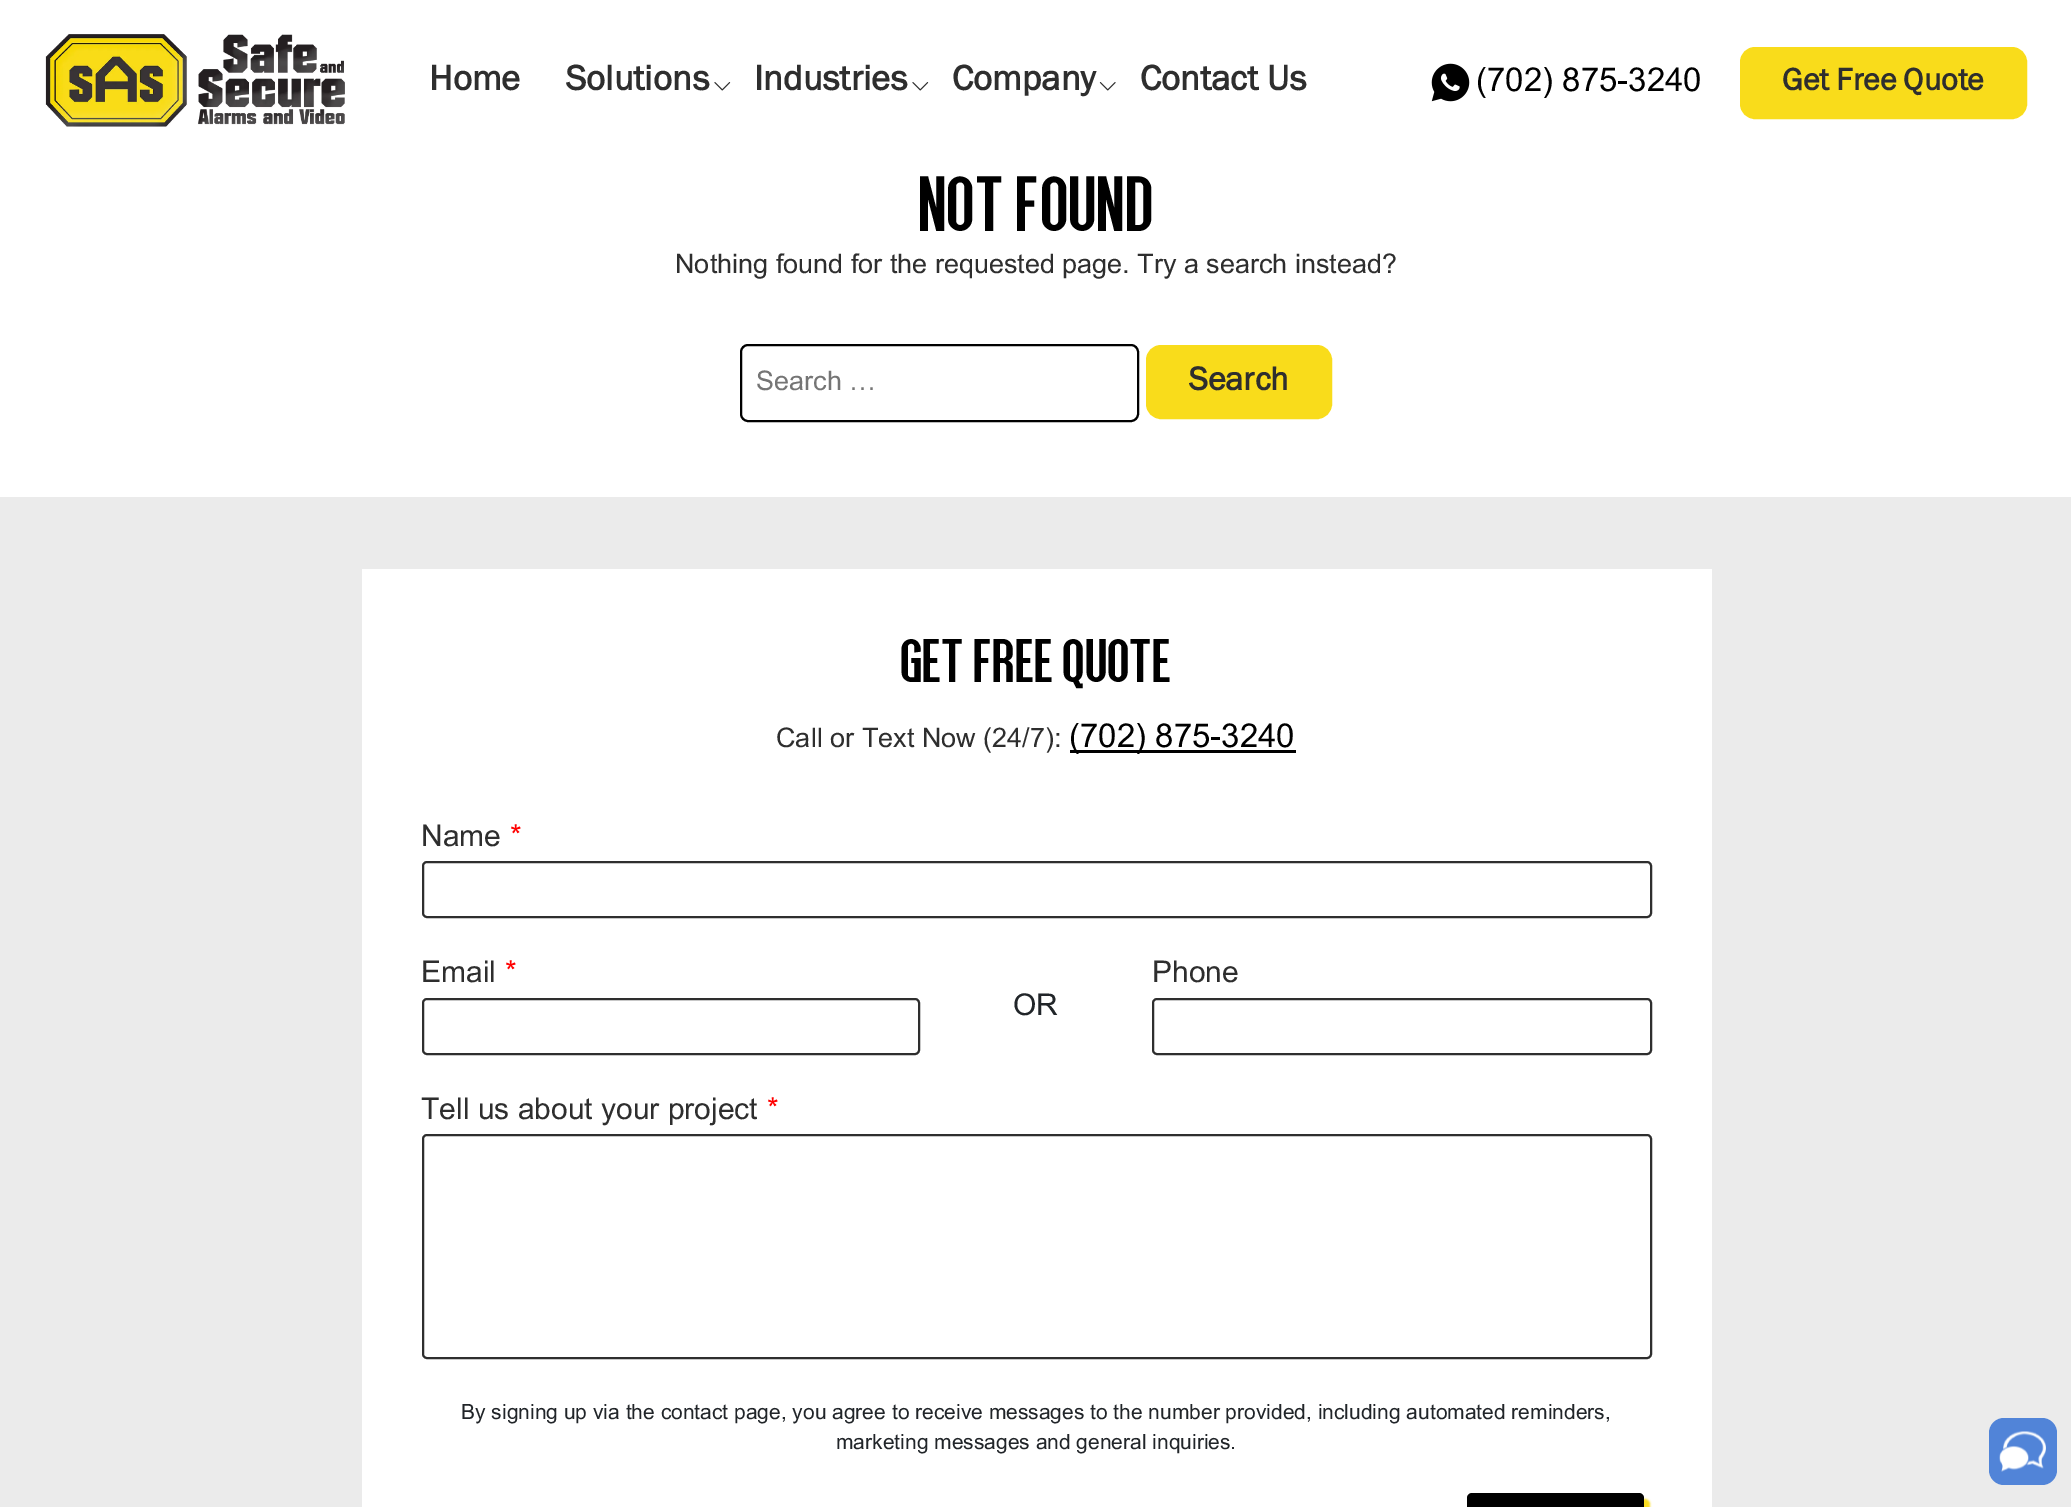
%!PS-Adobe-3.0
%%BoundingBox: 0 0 2071 1507
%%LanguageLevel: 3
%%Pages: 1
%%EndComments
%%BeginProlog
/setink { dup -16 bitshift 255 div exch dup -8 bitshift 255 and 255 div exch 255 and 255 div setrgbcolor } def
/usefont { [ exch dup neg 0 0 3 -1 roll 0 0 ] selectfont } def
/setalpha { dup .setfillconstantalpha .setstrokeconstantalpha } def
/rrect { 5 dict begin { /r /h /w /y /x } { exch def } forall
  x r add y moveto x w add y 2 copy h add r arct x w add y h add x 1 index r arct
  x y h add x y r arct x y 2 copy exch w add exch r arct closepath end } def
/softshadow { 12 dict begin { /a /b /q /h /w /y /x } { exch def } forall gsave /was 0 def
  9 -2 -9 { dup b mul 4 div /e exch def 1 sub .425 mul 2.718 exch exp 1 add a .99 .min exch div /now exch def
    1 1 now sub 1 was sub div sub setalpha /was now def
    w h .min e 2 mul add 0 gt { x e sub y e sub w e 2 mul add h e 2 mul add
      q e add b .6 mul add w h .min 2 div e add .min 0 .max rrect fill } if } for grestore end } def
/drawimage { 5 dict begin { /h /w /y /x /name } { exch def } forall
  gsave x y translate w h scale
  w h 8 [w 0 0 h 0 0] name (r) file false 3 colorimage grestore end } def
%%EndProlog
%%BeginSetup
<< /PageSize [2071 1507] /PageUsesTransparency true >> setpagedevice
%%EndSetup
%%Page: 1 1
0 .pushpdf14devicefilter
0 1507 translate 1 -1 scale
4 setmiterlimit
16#FFFFFF setink
0 0 2071 1507 rectfill
(img1.raw) 45 34 300 93 drawimage
/FranklinGothic-Bold 35.25 usefont
16#2E2E2E setink
429 90 moveto (Home) show
565 90 moveto (Solutions) show
(img2.raw) 714 82 17 9 drawimage
754 90 moveto (Industries) show
(img2.raw) 912 82 17 9 drawimage
952 90 moveto (Company) show
(img3.raw) 1099 82 17 9 drawimage
1140 90 moveto (Contact Us) show
(img4.raw) 1431 63 39 39 drawimage
/Arial-Regular 33 usefont
16#000000 setink
1476 91 moveto (\(702\) 875-3240) show
16#F9DC1B setink
1741.5 48.5 284 69 13.5 rrect gsave fill grestore
3 setlinewidth
stroke
/FranklinGothic-Bold 31 usefont
16#2E2E2E setink
1782 90 moveto (Get Free Quote) show
/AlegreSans-Regular 83 usefont
16#000000 setink
918 231 moveto (Not Found) show
/Arial-Regular 27 usefont
16#2E2E2E setink
675 273 moveto (Nothing found for the requested page. Try a search instead?) show
16#000000 setink
2 setlinewidth
741 345 397 76 7 rrect stroke
16#757575 setink
756 390 moveto (Search …) show
16#F9DC1B setink
1147.5 346.5 183 71 13.5 rrect gsave fill grestore
3 setlinewidth
stroke
/FranklinGothic-Bold 33 usefont
16#2E2E2E setink
1188 390 moveto (Search) show
16#EBEBEB setink
0 497 2071 1010 rectfill
16#FFFFFF setink
362 569 1350 938 rectfill
/AlegreSans-Regular 65.25 usefont
16#000000 setink
900 682 moveto (Get Free Quote) show
/Arial-Regular 27 usefont
16#2E2E2E setink
776 747 moveto (Call or Text Now \(24/7\):) show
16#000000 setink
1070 750 226 3 rectfill
/Arial-Regular 33 usefont
1069 747 moveto (\(702\) 875-3240) show
/Arial-Regular 30 usefont
16#2E2E2E setink
421 846 moveto (Name) show
16#FF0000 setink
510 846 moveto (*) show
16#2E2E2E setink
2 setlinewidth
423 862 1228 55 4 rrect stroke
421 982 moveto (Email) show
16#FF0000 setink
505 982 moveto (*) show
16#2E2E2E setink
423 999 496 55 4 rrect stroke
1152 982 moveto (Phone) show
1153 999 498 55 4 rrect stroke
16#212529 setink
1013 1015 moveto (OR) show
16#2E2E2E setink
421 1119 moveto (Tell us about your project) show
16#FF0000 setink
767 1119 moveto (*) show
16#2E2E2E setink
423 1135 1228 223 4 rrect stroke
/Arial-Regular 21 usefont
16#212529 setink
461 1419 moveto (By signing up via the contact page, you agree to receive messages to the number provided, including automated reminders,) show
836 1449 moveto (marketing messages and general inquiries.) show
16#F9DC1B setink
1473 1499 177 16 5 1 1 softshadow
16#000000 setink
1467 1493 177 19 5 rrect fill
16#5184D8 setink
1989 1418 68 67 15 rrect fill
(img5.raw) 1999 1431 47 41 drawimage
.poppdf14devicefilter showpage
%%EOF
